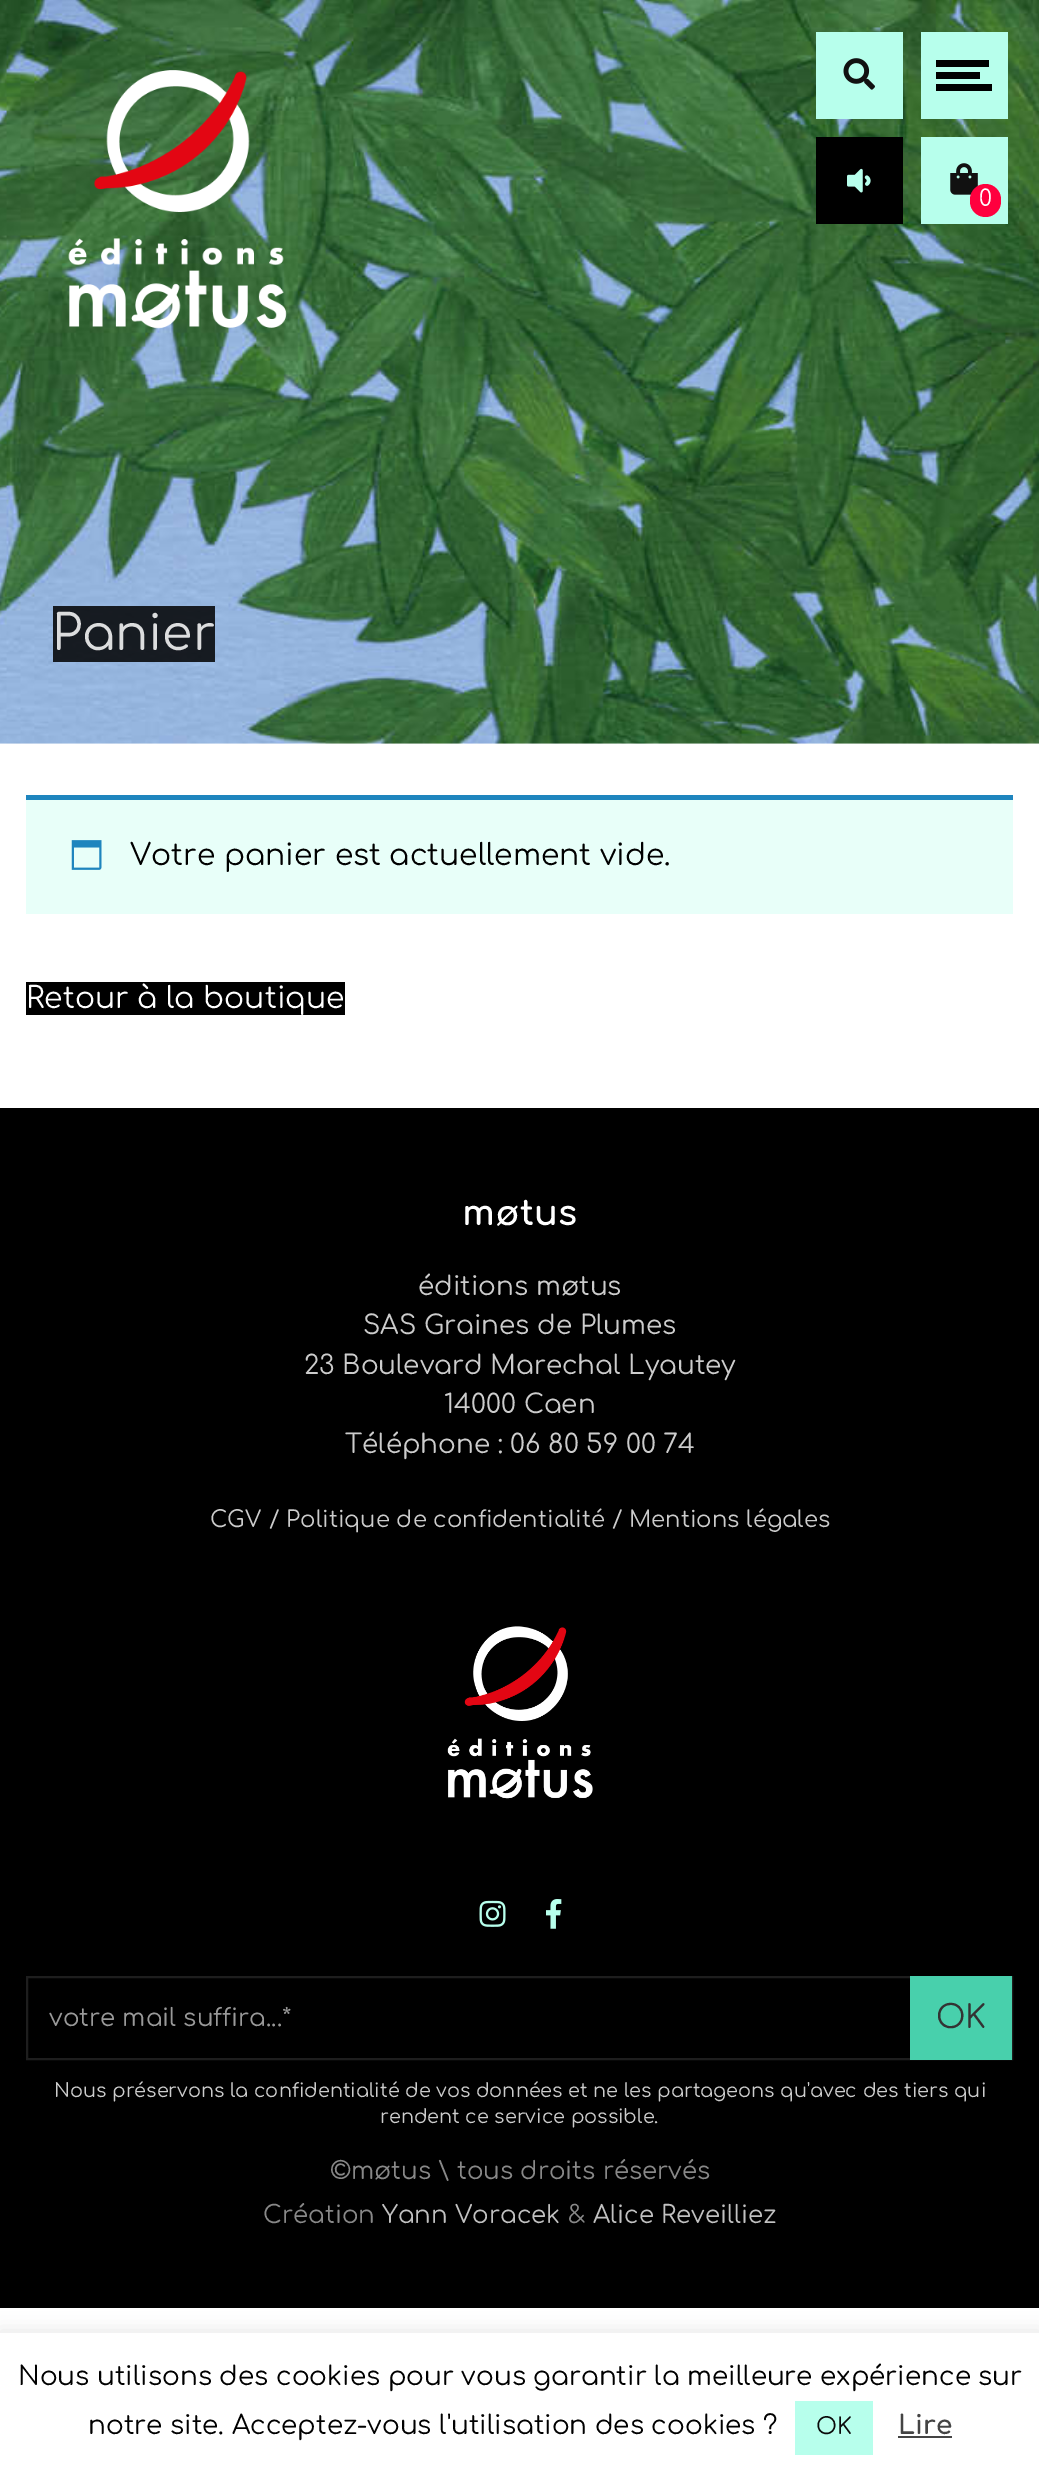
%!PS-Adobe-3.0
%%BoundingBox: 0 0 1039 2476
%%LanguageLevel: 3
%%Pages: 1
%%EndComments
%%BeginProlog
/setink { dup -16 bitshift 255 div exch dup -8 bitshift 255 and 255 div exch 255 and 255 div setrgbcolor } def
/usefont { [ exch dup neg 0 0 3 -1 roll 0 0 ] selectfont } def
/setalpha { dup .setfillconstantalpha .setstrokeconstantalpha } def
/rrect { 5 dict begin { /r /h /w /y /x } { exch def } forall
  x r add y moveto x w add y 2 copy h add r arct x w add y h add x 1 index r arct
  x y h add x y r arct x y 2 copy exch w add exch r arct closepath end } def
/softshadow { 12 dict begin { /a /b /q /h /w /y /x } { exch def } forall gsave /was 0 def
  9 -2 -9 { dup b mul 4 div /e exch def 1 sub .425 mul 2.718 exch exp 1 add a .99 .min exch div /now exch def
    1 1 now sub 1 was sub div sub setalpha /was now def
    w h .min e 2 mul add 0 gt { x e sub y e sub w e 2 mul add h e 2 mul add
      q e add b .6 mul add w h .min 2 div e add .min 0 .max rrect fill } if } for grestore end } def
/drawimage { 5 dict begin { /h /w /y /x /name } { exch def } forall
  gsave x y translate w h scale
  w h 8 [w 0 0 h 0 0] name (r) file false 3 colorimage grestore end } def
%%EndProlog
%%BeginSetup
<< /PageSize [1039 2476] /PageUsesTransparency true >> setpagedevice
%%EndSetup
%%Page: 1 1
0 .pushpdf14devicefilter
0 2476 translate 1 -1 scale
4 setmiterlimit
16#FFFFFF setink
0 0 1039 2476 rectfill
(img5.raw) 0 0 1039 744 drawimage
(img1.raw) 68 70 219 259 drawimage
16#B7FFEC setink
816 32 87 87 rectfill
(img2.raw) 843 58 32 32 drawimage
[
    [921 32 87 87 16#B7FFEC]
    [936 60 53 7 16#000000]
    [936 72 44 7 16#000000]
    [936 84 56 7 16#000000]
    [816 137 87 87 16#000000]
] { aload pop setink rectfill } forall
(img3.raw) 847 168 24 25 drawimage
16#B7FFEC setink
921 137 87 87 rectfill
(img4.raw) 950 163 28 32 drawimage
16#FF003E setink
970 184 31 33 15.5 rrect fill
/Comfortaa-Regular 22.75 usefont
16#FFFFFF setink
979 206 moveto (0) show
0.85 setalpha
16#000000 setink
53 606 162 56 rectfill
/Comfortaa-Regular 49 usefont
1 setalpha
16#DCDDDE setink
52 650 moveto (Panier) show
16#E8FFF9 setink
26 800 987 114 rectfill
16#1E85BE setink
26 795 987 5 rectfill
(img6.raw) 71 840 31 30 drawimage
/Comfortaa-Regular 29.75 usefont
16#000000 setink
130 865 moveto (Votre panier est actuellement vide.) show
26 982 319 33 rectfill
16#FFFFFF setink
26 1008 moveto (Retour à la boutique) show
16#000000 setink
0 1108 1039 1200 rectfill
/Comfortaa-Bold 35 usefont
16#FFFFFF setink
462 1225 moveto (møtus) show
/Comfortaa-Regular 26.25 usefont
16#CCCCCC setink
[
    [(éditions møtus) 418 1295]
    [(SAS Graines de Plumes) 363 1334]
    [(23 Boulevard Marechal Lyautey) 304 1374]
    [(14000 Caen) 444 1413]
    [(Téléphone : 06 80 59 00 74) 345 1453]
] { aload pop moveto show } forall
/Comfortaa-Regular 22.75 usefont
210 1527 moveto (CGV) show
269 1527 moveto (/ Politique de confidentialité / Mentions légales) show
(img7.raw) 447 1626 146 173 drawimage
(img8.raw) 479 1900 27 27 drawimage
(img9.raw) 546 1899 16 30 drawimage
16#1E1E1E setink
2 setlinewidth
27 1977 985 82 rectstroke
/Comfortaa-Regular 24.5 usefont
16#999999 setink
49 2026 moveto (votre mail suffira...*) show
16#48D0AC setink
910 1976 102 84 rectfill
/Comfortaa-Regular 32 usefont
16#333333 setink
936 2028 moveto (OK) show
/Comfortaa-Regular 19.25 usefont
16#CCCCCC setink
54 2097 moveto (Nous préservons la confidentialité de vos données et ne les partageons qu'avec des tiers qui) show
380 2123 moveto (rendent ce service possible.) show
/Comfortaa-Regular 24.5 usefont
16#888888 setink
330 2179 moveto (©møtus \\ tous droits réservés) show
263 2223 moveto (Création) show
16#C1C1C1 setink
382 2223 moveto (Yann Voracek) show
16#888888 setink
568 2223 moveto (&) show
16#C1C1C1 setink
593 2223 moveto (Alice Reveilliez) show
16#ACABAB setink
0 2331 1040 144 0 9 0.3 softshadow
16#FFFFFF setink
0 2333 1039 143 rectfill
/Comfortaa-Regular 26.25 usefont
16#000000 setink
18 2385 moveto (Nous utilisons des cookies pour vous garantir la meilleure expérience sur) show
88 2434 moveto (notre site. Acceptez-vous l'utilisation des cookies ?) show
16#B7FFEC setink
795 2401 78 54 rectfill
/Comfortaa-Regular 22.75 usefont
16#0A0A0A setink
816 2434 moveto (OK) show
/Comfortaa-Bold 26.25 usefont
16#444444 setink
898 2434 moveto (Lire) show
898 2436 54 2 rectfill
.poppdf14devicefilter showpage
%%EOF
